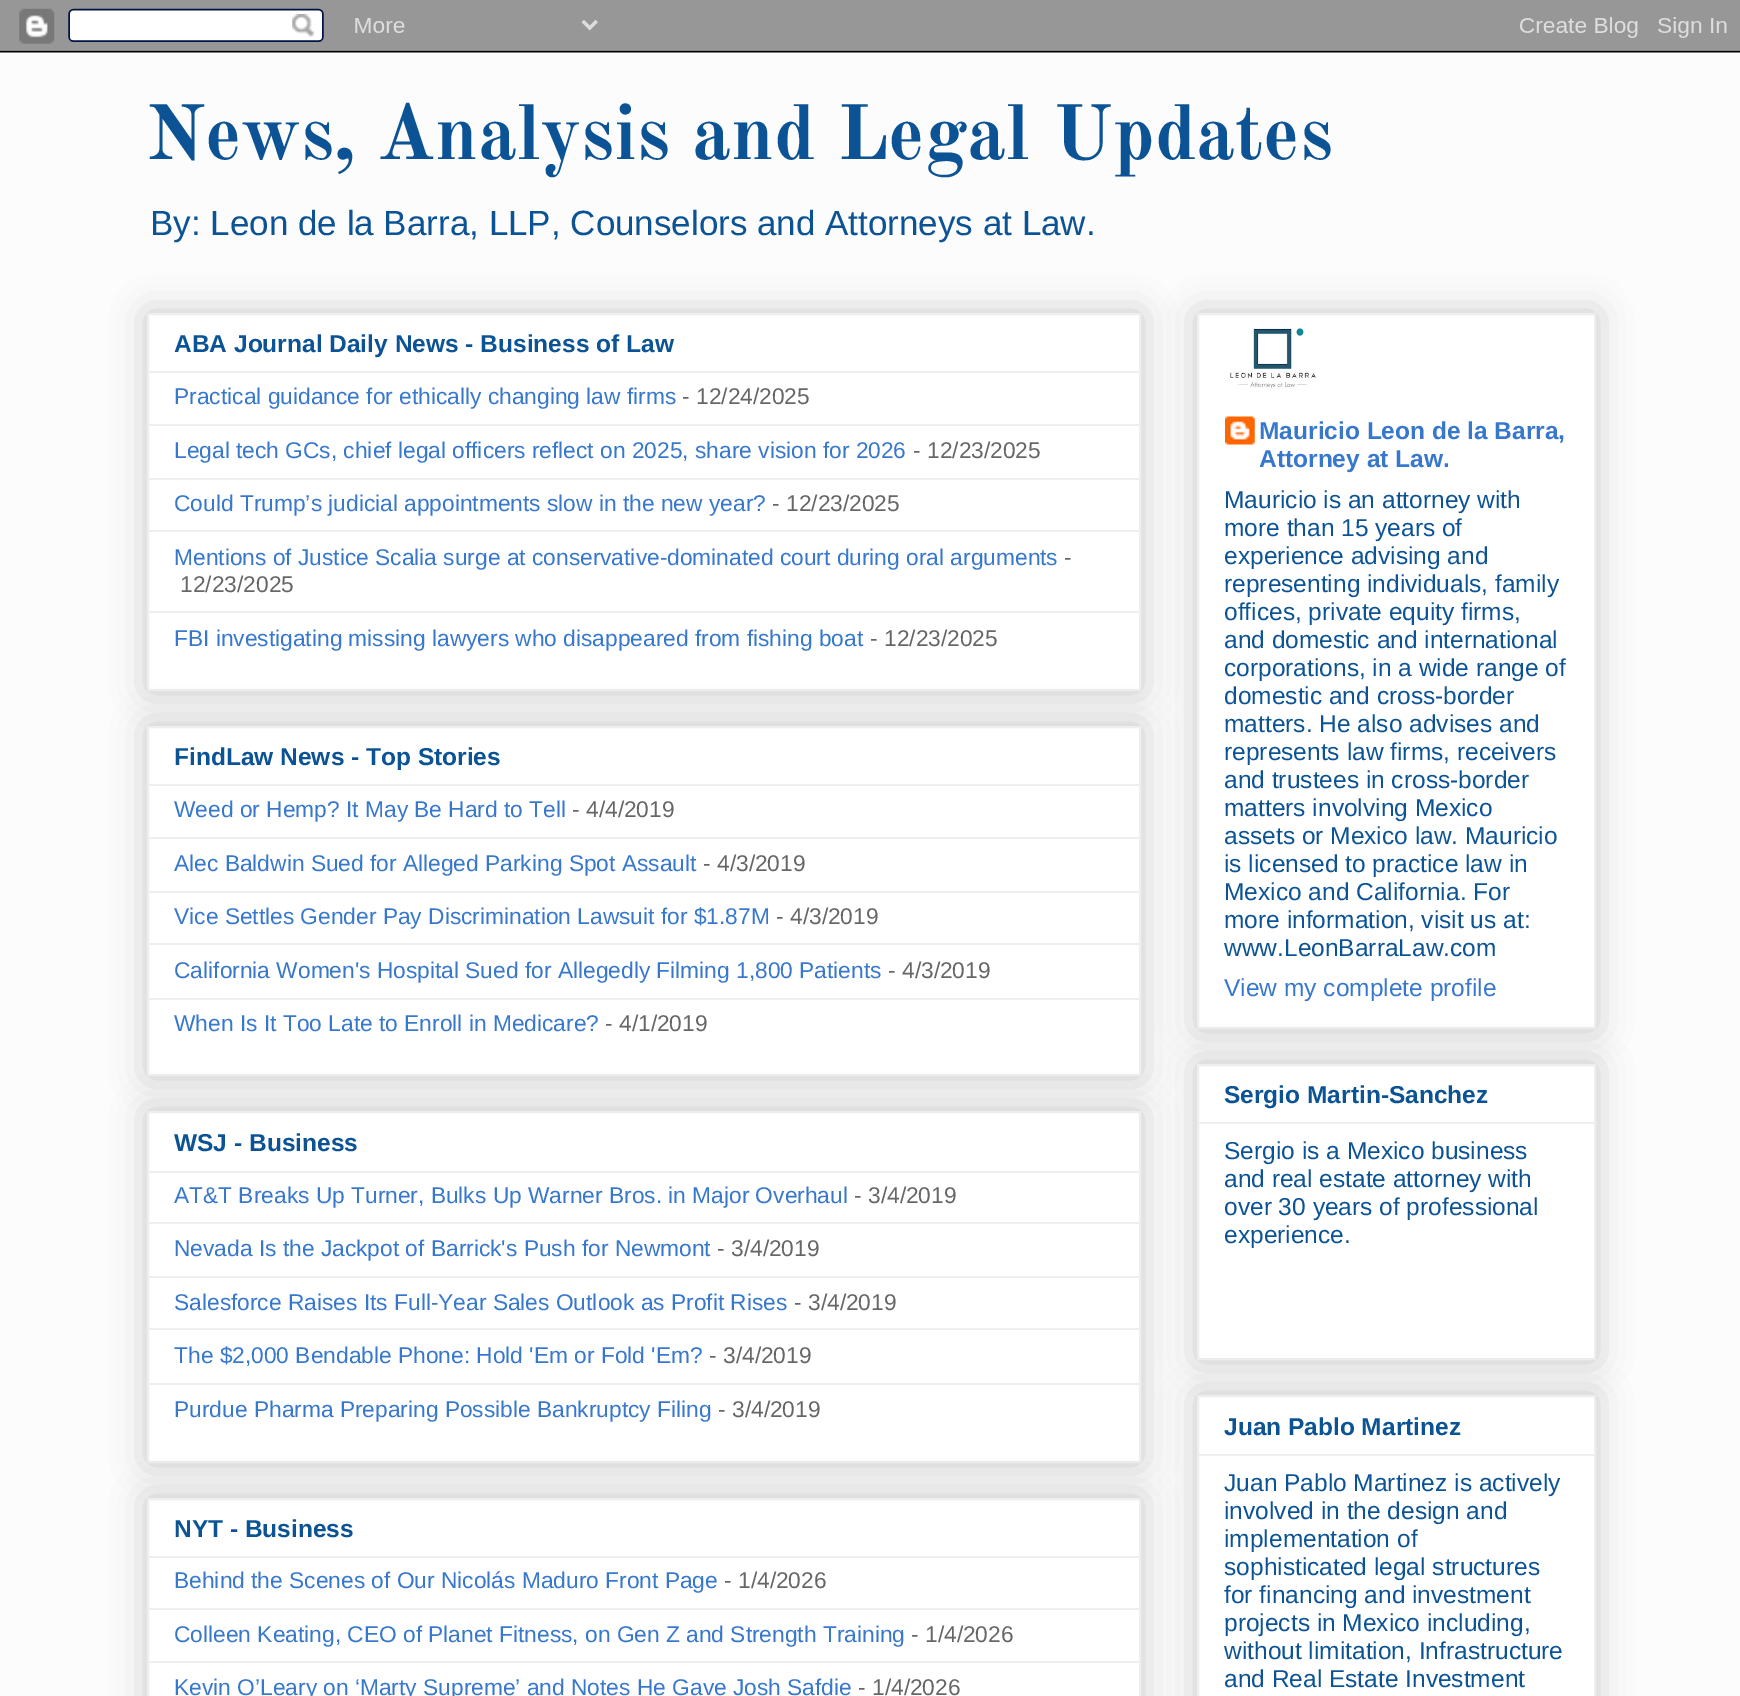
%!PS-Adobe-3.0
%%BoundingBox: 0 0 1740 1696
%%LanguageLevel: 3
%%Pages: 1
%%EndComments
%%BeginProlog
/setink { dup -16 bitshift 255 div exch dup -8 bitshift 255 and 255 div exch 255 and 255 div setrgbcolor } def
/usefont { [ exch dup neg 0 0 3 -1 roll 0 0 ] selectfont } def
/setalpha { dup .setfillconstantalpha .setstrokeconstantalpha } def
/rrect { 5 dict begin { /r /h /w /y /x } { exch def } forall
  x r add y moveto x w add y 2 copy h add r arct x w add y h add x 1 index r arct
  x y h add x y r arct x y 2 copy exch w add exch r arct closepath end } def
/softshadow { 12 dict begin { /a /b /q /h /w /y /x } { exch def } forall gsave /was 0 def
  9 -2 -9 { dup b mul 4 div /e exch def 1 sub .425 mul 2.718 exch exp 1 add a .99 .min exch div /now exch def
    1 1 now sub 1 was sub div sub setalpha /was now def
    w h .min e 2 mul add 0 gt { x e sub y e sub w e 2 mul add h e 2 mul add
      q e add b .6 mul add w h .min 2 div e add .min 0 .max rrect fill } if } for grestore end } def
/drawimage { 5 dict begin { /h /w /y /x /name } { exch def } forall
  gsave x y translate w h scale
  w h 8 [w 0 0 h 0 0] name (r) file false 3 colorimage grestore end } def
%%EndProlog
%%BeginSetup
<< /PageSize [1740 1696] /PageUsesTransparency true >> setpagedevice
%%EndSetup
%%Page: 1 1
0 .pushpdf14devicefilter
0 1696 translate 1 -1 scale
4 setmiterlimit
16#FCFCFC setink
0 0 1740 1696 rectfill
(img1.raw) 0 0 1740 53 drawimage
/OldStandardTT-Bold 77 usefont
16#0B5394 setink
146 159 moveto (News, Analysis and Legal Updates) show
/LiberationSans-Regular 35 usefont
150 235 moveto (By: Leon de la Barra, LLP, Counselors and Attorneys at Law.) show
16#000000 setink
147 313 994 378 0 17.5 0.2 softshadow
16#FFFFFF setink
148 314 moveto 1140 314 lineto 1140 690 lineto 148 690 lineto closepath gsave fill grestore
16#EEEEEE setink
2 setlinewidth
stroke
/LiberationSans-Bold 24.5 usefont
16#0B5394 setink
174 352 moveto (ABA Journal Daily News - Business of Law) show
16#EEEEEE setink
149 371 990 2 rectfill
/LiberationSans-Regular 22.75 usefont
16#3778CD setink
174 404 moveto (Practical guidance for ethically changing law firms) show
16#666666 setink
682 404 moveto (- 12/24/2025) show
16#EEEEEE setink
149 424 990 2 rectfill
16#3778CD setink
174 458 moveto (Legal tech GCs, chief legal officers reflect on 2025, share vision for 2026) show
16#666666 setink
913 458 moveto (- 12/23/2025) show
16#EEEEEE setink
149 478 990 2 rectfill
16#3778CD setink
174 511 moveto (Could Trump’s judicial appointments slow in the new year?) show
16#666666 setink
772 511 moveto (- 12/23/2025) show
16#EEEEEE setink
149 530 990 2 rectfill
16#3778CD setink
174 565 moveto (Mentions of Justice Scalia surge at conservative-dominated court during oral arguments) show
16#666666 setink
1064 565 moveto (-) show
180 592 moveto (12/23/2025) show
16#EEEEEE setink
149 611 990 2 rectfill
16#3778CD setink
174 646 moveto (FBI investigating missing lawyers who disappeared from fishing boat) show
16#666666 setink
870 646 moveto (- 12/23/2025) show
16#000000 setink
147 726 994 350 0 17.5 0.2 softshadow
16#FFFFFF setink
148 727 moveto 1140 727 lineto 1140 1075 lineto 148 1075 lineto closepath gsave fill grestore
16#EEEEEE setink
stroke
/LiberationSans-Bold 24.5 usefont
16#0B5394 setink
174 765 moveto (FindLaw News - Top Stories) show
16#EEEEEE setink
149 784 990 2 rectfill
/LiberationSans-Regular 22.75 usefont
16#3778CD setink
174 817 moveto (Weed or Hemp? It May Be Hard to Tell) show
16#666666 setink
572 817 moveto (- 4/4/2019) show
16#EEEEEE setink
149 837 990 2 rectfill
16#3778CD setink
174 871 moveto (Alec Baldwin Sued for Alleged Parking Spot Assault) show
16#666666 setink
703 871 moveto (- 4/3/2019) show
16#EEEEEE setink
149 891 990 2 rectfill
16#3778CD setink
174 924 moveto (Vice Settles Gender Pay Discrimination Lawsuit for $1.87M) show
16#666666 setink
776 924 moveto (- 4/3/2019) show
16#EEEEEE setink
149 943 990 2 rectfill
16#3778CD setink
174 978 moveto (California Women's Hospital Sued for Allegedly Filming 1,800 Patients) show
16#666666 setink
888 978 moveto (- 4/3/2019) show
16#EEEEEE setink
149 998 990 2 rectfill
16#3778CD setink
174 1031 moveto (When Is It Too Late to Enroll in Medicare?) show
16#666666 setink
605 1031 moveto (- 4/1/2019) show
16#000000 setink
147 1111 994 352 0 17.5 0.2 softshadow
16#FFFFFF setink
148 1112 moveto 1140 1112 lineto 1140 1462 lineto 148 1462 lineto closepath gsave fill grestore
16#EEEEEE setink
stroke
/LiberationSans-Bold 24.5 usefont
16#0B5394 setink
174 1151 moveto (WSJ - Business) show
16#EEEEEE setink
149 1171 990 2 rectfill
/LiberationSans-Regular 22.75 usefont
16#3778CD setink
174 1203 moveto (AT&T Breaks Up Turner, Bulks Up Warner Bros. in Major Overhaul) show
16#666666 setink
854 1203 moveto (- 3/4/2019) show
16#EEEEEE setink
149 1222 990 2 rectfill
16#3778CD setink
174 1256 moveto (Nevada Is the Jackpot of Barrick's Push for Newmont) show
16#666666 setink
717 1256 moveto (- 3/4/2019) show
16#EEEEEE setink
149 1276 990 2 rectfill
16#3778CD setink
174 1310 moveto (Salesforce Raises Its Full-Year Sales Outlook as Profit Rises) show
16#666666 setink
794 1310 moveto (- 3/4/2019) show
16#EEEEEE setink
149 1328 990 2 rectfill
16#3778CD setink
174 1363 moveto (The $2,000 Bendable Phone: Hold 'Em or Fold 'Em?) show
16#666666 setink
709 1363 moveto (- 3/4/2019) show
16#EEEEEE setink
149 1383 990 2 rectfill
16#3778CD setink
174 1417 moveto (Purdue Pharma Preparing Possible Bankruptcy Filing) show
16#666666 setink
718 1417 moveto (- 3/4/2019) show
16#000000 setink
147 1498 994 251 0 17.5 0.2 softshadow
16#FFFFFF setink
148 1499 moveto 1140 1499 lineto 1140 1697 lineto 148 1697 lineto closepath gsave fill grestore
16#EEEEEE setink
stroke
/LiberationSans-Bold 24.5 usefont
16#0B5394 setink
174 1537 moveto (NYT - Business) show
16#EEEEEE setink
149 1556 990 2 rectfill
/LiberationSans-Regular 22.75 usefont
16#3778CD setink
174 1588 moveto (Behind the Scenes of Our Nicolás Maduro Front Page) show
16#666666 setink
724 1588 moveto (- 1/4/2026) show
16#EEEEEE setink
149 1608 990 2 rectfill
16#3778CD setink
174 1642 moveto (Colleen Keating, CEO of Planet Fitness, on Gen Z and Strength Training) show
16#666666 setink
911 1642 moveto (- 1/4/2026) show
16#EEEEEE setink
149 1661 990 2 rectfill
16#3778CD setink
174 1695 moveto (Kevin O’Leary on ‘Marty Supreme’ and Notes He Gave Josh Safdie) show
16#666666 setink
858 1695 moveto (- 1/4/2026) show
16#000000 setink
1197 313 399 716 0 17.5 0.2 softshadow
16#FFFFFF setink
1198 314 moveto 1595 314 lineto 1595 1028 lineto 1198 1028 lineto closepath gsave fill grestore
16#EEEEEE setink
stroke
(img2.raw) 1230 327 87 62 drawimage
(img3.raw) 1225 416 30 29 drawimage
/LiberationSans-Bold 24.5 usefont
16#3778CD setink
1259 439 moveto (Mauricio Leon de la Barra,) show
1259 467 moveto (Attorney at Law.) show
/LiberationSans-Regular 24.5 usefont
16#0B5394 setink
[
    [(Mauricio is an attorney with) 1224 508]
    [(more than 15 years of) 1224 536]
    [(experience advising and) 1224 564]
    [(representing individuals, family) 1224 592]
    [(offices, private equity firms,) 1224 620]
    [(and domestic and international) 1224 648]
    [(corporations, in a wide range of) 1224 676]
    [(domestic and cross-border) 1224 704]
    [(matters. He also advises and) 1224 732]
    [(represents law firms, receivers) 1224 760]
    [(and trustees in cross-border) 1224 788]
    [(matters involving Mexico) 1224 816]
    [(assets or Mexico law. Mauricio) 1224 844]
    [(is licensed to practice law in) 1224 872]
    [(Mexico and California. For) 1224 900]
    [(more information, visit us at:) 1224 928]
    [(www.LeonBarraLaw.com) 1224 956]
] { aload pop moveto show } forall
16#3778CD setink
1224 996 moveto (View my complete profile) show
16#000000 setink
1197 1064 399 296 0 17.5 0.2 softshadow
16#FFFFFF setink
1198 1065 moveto 1595 1065 lineto 1595 1359 lineto 1198 1359 lineto closepath gsave fill grestore
16#EEEEEE setink
stroke
/LiberationSans-Bold 24.5 usefont
16#0B5394 setink
1224 1103 moveto (Sergio Martin-Sanchez) show
16#EEEEEE setink
1199 1122 395 2 rectfill
/LiberationSans-Regular 24.5 usefont
16#0B5394 setink
[
    [(Sergio is a Mexico business) 1224 1159]
    [(and real estate attorney with) 1224 1187]
    [(over 30 years of professional) 1224 1215]
    [(experience.) 1224 1243]
] { aload pop moveto show } forall
16#000000 setink
1197 1395 399 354 0 17.5 0.2 softshadow
16#FFFFFF setink
1198 1396 moveto 1595 1396 lineto 1595 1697 lineto 1198 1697 lineto closepath gsave fill grestore
16#EEEEEE setink
stroke
/LiberationSans-Bold 24.5 usefont
16#0B5394 setink
1224 1435 moveto (Juan Pablo Martinez) show
16#EEEEEE setink
1199 1454 395 2 rectfill
/LiberationSans-Regular 24.5 usefont
16#0B5394 setink
[
    [(Juan Pablo Martinez is actively) 1224 1491]
    [(involved in the design and) 1224 1519]
    [(implementation of) 1224 1547]
    [(sophisticated legal structures) 1224 1575]
    [(for financing and investment) 1224 1603]
    [(projects in Mexico including,) 1224 1631]
    [(without limitation, Infrastructure) 1224 1659]
    [(and Real Estate Investment) 1224 1687]
] { aload pop moveto show } forall
.poppdf14devicefilter showpage
%%EOF
